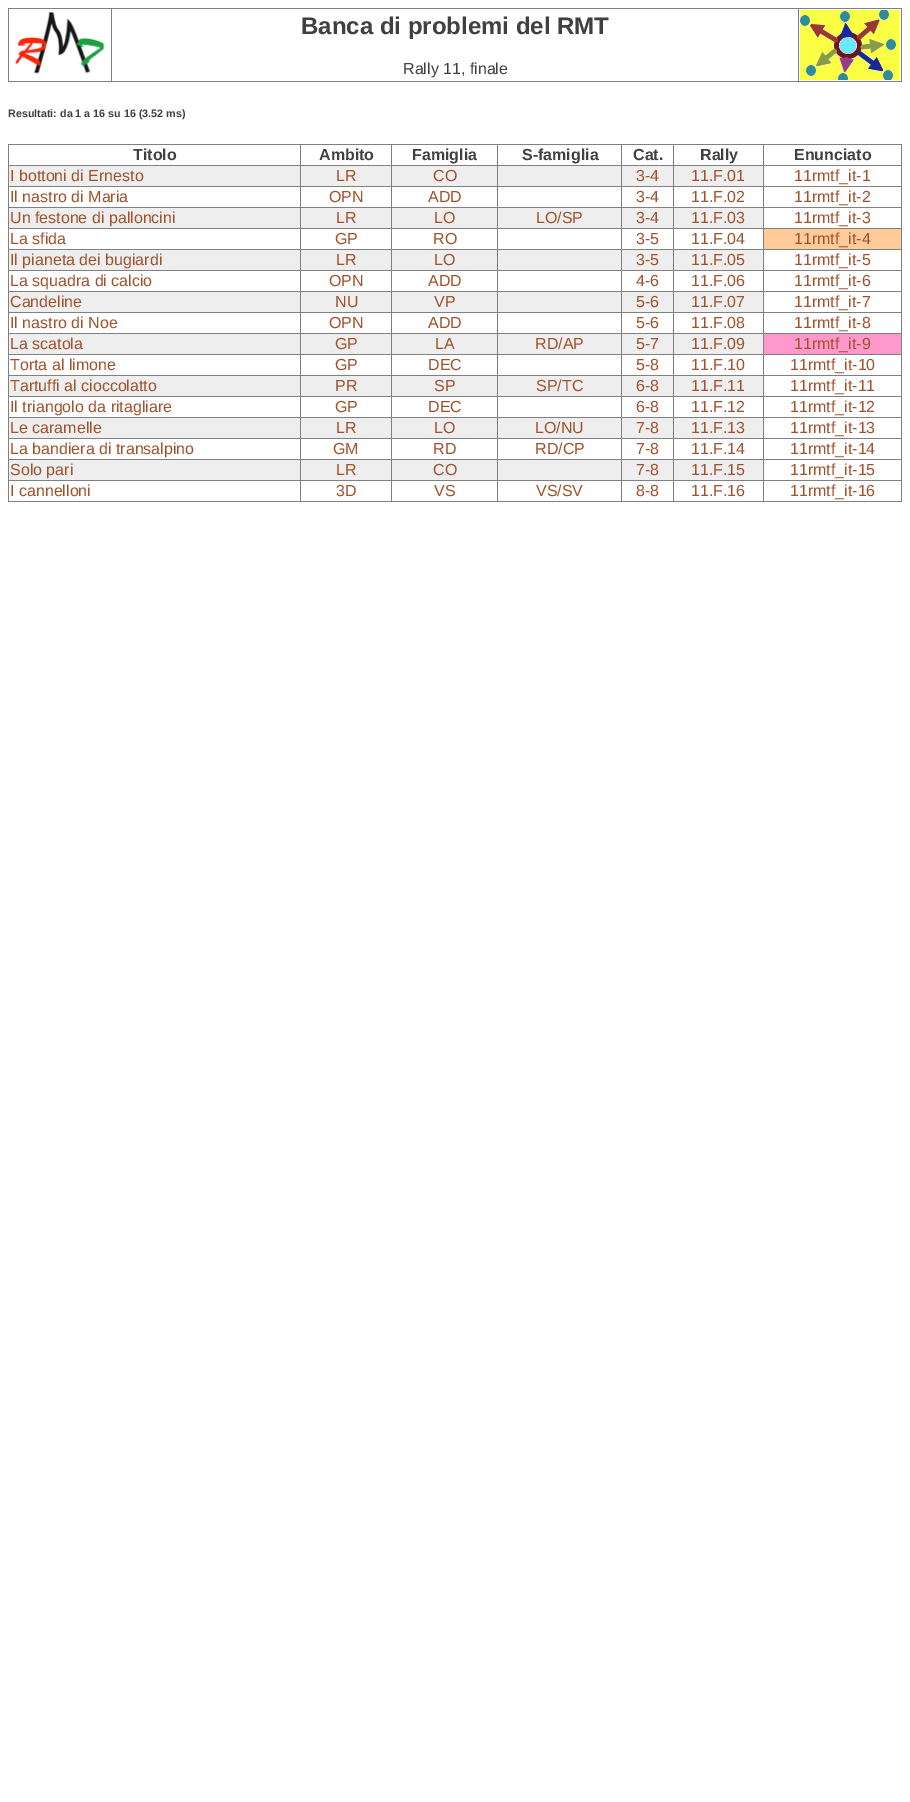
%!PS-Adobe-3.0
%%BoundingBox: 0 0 910 1802
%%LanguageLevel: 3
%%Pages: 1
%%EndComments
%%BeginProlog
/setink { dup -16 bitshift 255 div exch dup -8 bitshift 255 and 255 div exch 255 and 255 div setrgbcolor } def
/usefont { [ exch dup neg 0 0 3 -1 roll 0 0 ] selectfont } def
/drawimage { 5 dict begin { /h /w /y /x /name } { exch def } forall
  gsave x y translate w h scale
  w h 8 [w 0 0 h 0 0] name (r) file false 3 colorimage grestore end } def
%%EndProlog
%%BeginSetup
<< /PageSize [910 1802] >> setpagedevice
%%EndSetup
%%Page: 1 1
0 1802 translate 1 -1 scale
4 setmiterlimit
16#FFFFFF setink
0 0 910 1802 rectfill
[
    [8 8 894 1 16#808080]
    [901 8 1 74 16#808080]
    [8 81 894 1 16#808080]
    [8 8 1 74 16#808080]
] { aload pop setink rectfill } forall
(img1.raw) 14 12 91 62 drawimage
111 8 1 74 rectfill
/LiberationSans-Bold 24 usefont
16#404040 setink
301 34 moveto (Banca di problemi del RMT) show
/LiberationSans-Regular 16 usefont
403 74 moveto (Rally 11, finale) show
16#808080 setink
798 8 1 74 rectfill
(img2.raw) 800 10 100 70 drawimage
/LiberationSans-Bold 10.75 usefont
16#404040 setink
8 117 moveto (Resultati: da 1 a 16 su 16 \(3.52 ms\)) show
[
    [8 144 894 1 16#808080]
    [901 144 1 358 16#808080]
    [8 501 894 1 16#808080]
    [8 144 1 358 16#808080]
] { aload pop setink rectfill } forall
/LiberationSans-Bold 16 usefont
16#404040 setink
133 160 moveto (Titolo) show
[
    [763 165 139 1 16#808080]
    [763 186 139 1 16#808080]
    [763 207 139 1 16#808080]
    [763 228 139 1 16#808080]
    [763 249 139 1 16#808080]
    [763 270 139 1 16#808080]
    [763 291 139 1 16#808080]
    [763 312 139 1 16#808080]
    [763 333 139 1 16#808080]
    [763 354 139 1 16#808080]
    [763 375 139 1 16#808080]
    [763 396 139 1 16#808080]
    [763 417 139 1 16#808080]
    [763 438 139 1 16#808080]
    [763 459 139 1 16#808080]
    [763 480 139 1 16#808080]
    [763 480 1 22 16#808080]
    [673 480 91 1 16#808080]
    [763 459 1 22 16#808080]
    [673 459 91 1 16#808080]
    [763 438 1 22 16#808080]
    [673 438 91 1 16#808080]
    [763 417 1 22 16#808080]
    [673 417 91 1 16#808080]
    [763 396 1 22 16#808080]
    [673 396 91 1 16#808080]
    [763 375 1 22 16#808080]
    [673 375 91 1 16#808080]
    [763 354 1 22 16#808080]
    [673 354 91 1 16#808080]
    [763 333 1 22 16#808080]
    [673 333 91 1 16#808080]
    [763 312 1 22 16#808080]
    [673 312 91 1 16#808080]
    [763 291 1 22 16#808080]
    [673 291 91 1 16#808080]
    [763 270 1 22 16#808080]
    [673 270 91 1 16#808080]
    [763 249 1 22 16#808080]
    [673 249 91 1 16#808080]
    [763 228 1 22 16#808080]
    [673 228 91 1 16#808080]
    [763 207 1 22 16#808080]
    [673 207 91 1 16#808080]
    [763 186 1 22 16#808080]
    [673 186 91 1 16#808080]
    [763 165 1 22 16#808080]
    [673 165 91 1 16#808080]
    [9 166 754 20 16#EEEEEE]
    [9 208 754 20 16#EEEEEE]
    [9 250 754 20 16#EEEEEE]
    [9 292 754 20 16#EEEEEE]
    [9 334 754 20 16#EEEEEE]
    [9 376 754 20 16#EEEEEE]
    [9 418 754 20 16#EEEEEE]
    [9 460 754 20 16#EEEEEE]
    [673 480 1 22 16#808080]
    [621 480 53 1 16#808080]
    [673 459 1 22 16#808080]
    [621 459 53 1 16#808080]
    [673 438 1 22 16#808080]
    [621 438 53 1 16#808080]
    [673 417 1 22 16#808080]
    [621 417 53 1 16#808080]
    [673 396 1 22 16#808080]
    [621 396 53 1 16#808080]
    [673 375 1 22 16#808080]
    [621 375 53 1 16#808080]
    [673 354 1 22 16#808080]
    [621 354 53 1 16#808080]
    [673 333 1 22 16#808080]
    [621 333 53 1 16#808080]
    [673 312 1 22 16#808080]
    [621 312 53 1 16#808080]
    [673 291 1 22 16#808080]
    [621 291 53 1 16#808080]
    [673 270 1 22 16#808080]
    [621 270 53 1 16#808080]
    [673 249 1 22 16#808080]
    [621 249 53 1 16#808080]
    [673 228 1 22 16#808080]
    [621 228 53 1 16#808080]
    [673 207 1 22 16#808080]
    [621 207 53 1 16#808080]
    [673 186 1 22 16#808080]
    [621 186 53 1 16#808080]
    [673 165 1 22 16#808080]
    [621 165 53 1 16#808080]
    [621 480 1 22 16#808080]
    [497 480 125 1 16#808080]
    [621 459 1 22 16#808080]
    [497 459 125 1 16#808080]
    [621 438 1 22 16#808080]
    [497 438 125 1 16#808080]
    [621 417 1 22 16#808080]
    [497 417 125 1 16#808080]
    [621 396 1 22 16#808080]
    [497 396 125 1 16#808080]
    [621 375 1 22 16#808080]
    [497 375 125 1 16#808080]
    [621 354 1 22 16#808080]
    [497 354 125 1 16#808080]
    [621 333 1 22 16#808080]
    [497 333 125 1 16#808080]
    [621 312 1 22 16#808080]
    [497 312 125 1 16#808080]
    [621 291 1 22 16#808080]
    [497 291 125 1 16#808080]
    [621 270 1 22 16#808080]
    [497 270 125 1 16#808080]
    [621 249 1 22 16#808080]
    [497 249 125 1 16#808080]
    [621 228 1 22 16#808080]
    [497 228 125 1 16#808080]
    [621 207 1 22 16#808080]
    [497 207 125 1 16#808080]
    [621 186 1 22 16#808080]
    [497 186 125 1 16#808080]
    [621 165 1 22 16#808080]
    [497 165 125 1 16#808080]
    [497 480 1 22 16#808080]
    [391 480 107 1 16#808080]
    [497 459 1 22 16#808080]
    [391 459 107 1 16#808080]
    [497 438 1 22 16#808080]
    [391 438 107 1 16#808080]
    [497 417 1 22 16#808080]
    [391 417 107 1 16#808080]
    [497 396 1 22 16#808080]
    [391 396 107 1 16#808080]
    [497 375 1 22 16#808080]
    [391 375 107 1 16#808080]
    [497 354 1 22 16#808080]
    [391 354 107 1 16#808080]
    [497 333 1 22 16#808080]
    [391 333 107 1 16#808080]
    [497 312 1 22 16#808080]
    [391 312 107 1 16#808080]
    [497 291 1 22 16#808080]
    [391 291 107 1 16#808080]
    [497 270 1 22 16#808080]
    [391 270 107 1 16#808080]
    [497 249 1 22 16#808080]
    [391 249 107 1 16#808080]
    [497 228 1 22 16#808080]
    [391 228 107 1 16#808080]
    [497 207 1 22 16#808080]
    [391 207 107 1 16#808080]
    [497 186 1 22 16#808080]
    [391 186 107 1 16#808080]
    [497 165 1 22 16#808080]
    [391 165 107 1 16#808080]
    [391 480 1 22 16#808080]
    [300 480 92 1 16#808080]
    [391 459 1 22 16#808080]
    [300 459 92 1 16#808080]
    [391 438 1 22 16#808080]
    [300 438 92 1 16#808080]
    [391 417 1 22 16#808080]
    [300 417 92 1 16#808080]
    [391 396 1 22 16#808080]
    [300 396 92 1 16#808080]
    [391 375 1 22 16#808080]
    [300 375 92 1 16#808080]
    [391 354 1 22 16#808080]
    [300 354 92 1 16#808080]
    [391 333 1 22 16#808080]
    [300 333 92 1 16#808080]
    [391 312 1 22 16#808080]
    [300 312 92 1 16#808080]
    [391 291 1 22 16#808080]
    [300 291 92 1 16#808080]
    [391 270 1 22 16#808080]
    [300 270 92 1 16#808080]
    [391 249 1 22 16#808080]
    [300 249 92 1 16#808080]
    [391 228 1 22 16#808080]
    [300 228 92 1 16#808080]
    [391 207 1 22 16#808080]
    [300 207 92 1 16#808080]
    [391 186 1 22 16#808080]
    [300 186 92 1 16#808080]
    [391 165 1 22 16#808080]
    [300 165 92 1 16#808080]
    [300 480 1 22 16#808080]
    [8 480 293 1 16#808080]
    [300 459 1 22 16#808080]
    [8 459 293 1 16#808080]
    [300 438 1 22 16#808080]
    [8 438 293 1 16#808080]
    [300 417 1 22 16#808080]
    [8 417 293 1 16#808080]
    [300 396 1 22 16#808080]
    [8 396 293 1 16#808080]
    [300 375 1 22 16#808080]
    [8 375 293 1 16#808080]
    [300 354 1 22 16#808080]
    [8 354 293 1 16#808080]
    [300 333 1 22 16#808080]
    [8 333 293 1 16#808080]
    [300 312 1 22 16#808080]
    [8 312 293 1 16#808080]
    [300 291 1 22 16#808080]
    [8 291 293 1 16#808080]
    [300 270 1 22 16#808080]
    [8 270 293 1 16#808080]
    [300 249 1 22 16#808080]
    [8 249 293 1 16#808080]
    [300 228 1 22 16#808080]
    [8 228 293 1 16#808080]
    [300 207 1 22 16#808080]
    [8 207 293 1 16#808080]
    [300 186 1 22 16#808080]
    [8 186 293 1 16#808080]
    [300 165 1 22 16#808080]
    [8 165 293 1 16#808080]
    [300 144 1 22 16#808080]
] { aload pop setink rectfill } forall
16#404040 setink
319 160 moveto (Ambito) show
16#808080 setink
391 144 1 22 rectfill
16#404040 setink
412 160 moveto (Famiglia) show
16#808080 setink
497 144 1 22 rectfill
16#404040 setink
522 160 moveto (S-famiglia) show
16#808080 setink
621 144 1 22 rectfill
16#404040 setink
633 160 moveto (Cat.) show
16#808080 setink
673 144 1 22 rectfill
16#404040 setink
700 160 moveto (Rally) show
16#808080 setink
763 144 1 22 rectfill
16#404040 setink
794 160 moveto (Enunciato) show
/LiberationSans-Regular 16 usefont
16#A0522D setink
[
    [(I bottoni di Ernesto) 10 181]
    [(LR) 336 181]
    [(CO) 433 181]
    [(3-4) 636 181]
    [(11.F.01) 691 181]
    [(11rmtf_it-1) 794 181]
    [(Il nastro di Maria) 10 202]
    [(OPN) 329 202]
    [(ADD) 428 202]
    [(3-4) 636 202]
    [(11.F.02) 691 202]
    [(11rmtf_it-2) 794 202]
    [(Un festone di palloncini) 10 223]
    [(LR) 336 223]
    [(LO) 434 223]
    [(LO/SP) 536 223]
    [(3-4) 636 223]
    [(11.F.03) 691 223]
    [(11rmtf_it-3) 794 223]
    [(La sfida) 10 244]
    [(GP) 335 244]
    [(RO) 433 244]
    [(3-5) 636 244]
    [(11.F.04) 691 244]
] { aload pop moveto show } forall
16#FFCC99 setink
764 229 137 20 rectfill
16#A0522D setink
[
    [(11rmtf_it-4) 794 244]
    [(Il pianeta dei bugiardi) 10 265]
    [(LR) 336 265]
    [(LO) 434 265]
    [(3-5) 636 265]
    [(11.F.05) 691 265]
    [(11rmtf_it-5) 794 265]
    [(La squadra di calcio) 10 286]
    [(OPN) 329 286]
    [(ADD) 428 286]
    [(4-6) 636 286]
    [(11.F.06) 691 286]
    [(11rmtf_it-6) 794 286]
    [(Candeline) 10 307]
    [(NU) 335 307]
    [(VP) 434 307]
    [(5-6) 636 307]
    [(11.F.07) 691 307]
    [(11rmtf_it-7) 794 307]
    [(Il nastro di Noe) 10 328]
    [(OPN) 329 328]
    [(ADD) 428 328]
    [(5-6) 636 328]
    [(11.F.08) 691 328]
    [(11rmtf_it-8) 794 328]
    [(La scatola) 10 349]
    [(GP) 335 349]
    [(LA) 435 349]
    [(RD/AP) 535 349]
    [(5-7) 636 349]
    [(11.F.09) 691 349]
] { aload pop moveto show } forall
16#FF99CC setink
764 334 137 20 rectfill
16#A0522D setink
[
    [(11rmtf_it-9) 794 349]
    [(Torta al limone) 10 370]
    [(GP) 335 370]
    [(DEC) 428 370]
    [(5-8) 636 370]
    [(11.F.10) 691 370]
    [(11rmtf_it-10) 790 370]
    [(Tartuffi al cioccolatto) 10 391]
    [(PR) 335 391]
    [(SP) 434 391]
    [(SP/TC) 536 391]
    [(6-8) 636 391]
    [(11.F.11) 691 391]
    [(11rmtf_it-11) 790 391]
    [(Il triangolo da ritagliare) 10 412]
    [(GP) 335 412]
    [(DEC) 428 412]
    [(6-8) 636 412]
    [(11.F.12) 691 412]
    [(11rmtf_it-12) 790 412]
    [(Le caramelle) 10 433]
    [(LR) 336 433]
    [(LO) 434 433]
    [(LO/NU) 535 433]
    [(7-8) 636 433]
    [(11.F.13) 691 433]
    [(11rmtf_it-13) 790 433]
    [(La bandiera di transalpino) 10 454]
    [(GM) 333 454]
    [(RD) 433 454]
    [(RD/CP) 535 454]
    [(7-8) 636 454]
    [(11.F.14) 691 454]
    [(11rmtf_it-14) 790 454]
    [(Solo pari) 10 475]
    [(LR) 336 475]
    [(CO) 433 475]
    [(7-8) 636 475]
    [(11.F.15) 691 475]
    [(11rmtf_it-15) 790 475]
    [(I cannelloni) 10 496]
    [(3D) 336 496]
    [(VS) 434 496]
    [(VS/SV) 536 496]
    [(8-8) 636 496]
    [(11.F.16) 691 496]
    [(11rmtf_it-16) 790 496]
] { aload pop moveto show } forall
showpage
%%EOF
